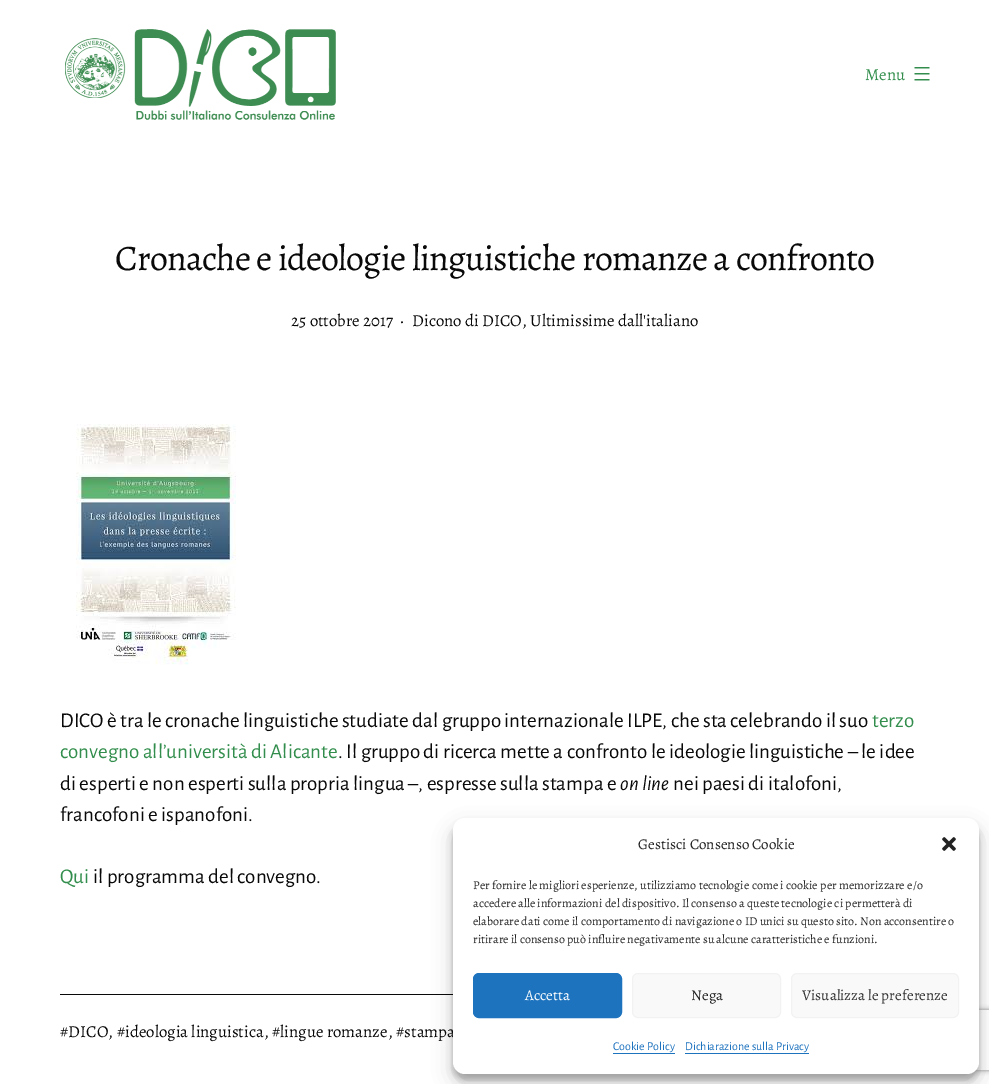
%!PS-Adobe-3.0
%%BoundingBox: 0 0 989 1084
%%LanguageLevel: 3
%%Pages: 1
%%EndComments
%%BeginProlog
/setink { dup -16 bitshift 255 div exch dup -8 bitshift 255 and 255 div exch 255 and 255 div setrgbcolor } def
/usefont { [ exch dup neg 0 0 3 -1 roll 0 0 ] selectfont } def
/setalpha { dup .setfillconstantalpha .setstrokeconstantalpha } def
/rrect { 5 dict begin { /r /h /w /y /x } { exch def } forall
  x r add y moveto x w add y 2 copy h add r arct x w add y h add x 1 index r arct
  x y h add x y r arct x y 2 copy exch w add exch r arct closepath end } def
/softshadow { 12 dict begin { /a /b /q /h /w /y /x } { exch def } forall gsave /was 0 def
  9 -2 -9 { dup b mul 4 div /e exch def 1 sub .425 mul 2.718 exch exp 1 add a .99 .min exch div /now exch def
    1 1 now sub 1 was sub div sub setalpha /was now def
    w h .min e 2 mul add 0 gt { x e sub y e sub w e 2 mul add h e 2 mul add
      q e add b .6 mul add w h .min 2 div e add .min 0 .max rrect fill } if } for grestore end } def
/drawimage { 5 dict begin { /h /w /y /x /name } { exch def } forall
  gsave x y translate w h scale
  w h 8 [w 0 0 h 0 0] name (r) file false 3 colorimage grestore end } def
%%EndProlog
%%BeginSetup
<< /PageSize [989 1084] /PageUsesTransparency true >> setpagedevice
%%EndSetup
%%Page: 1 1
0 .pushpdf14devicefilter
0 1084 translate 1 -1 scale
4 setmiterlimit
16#FFFFFF setink
0 0 989 1084 rectfill
(img1.raw) 65 29 271 91 drawimage
/Alegreya-Regular 16.8 usefont
16#338E4D setink
865 80 moveto (Menu) show
(img2.raw) 914 67 16 14 drawimage
/Alegreya-Regular 36 usefont
16#0A0909 setink
115 270 moveto -0.8 0 (Cronache e ideologie linguistiche romanze a confronto) ashow
/Alegreya-Regular 16.8 usefont
[
    [(25 ottobre 2017) 291 326]
    [(·) 400 326]
    [(Dicono di DICO, Ultimissime dall'italiano) 412 326]
] { aload pop moveto show } forall
(img3.raw) 76 424 160 241 drawimage
/AlegreyaSans-Regular 21 usefont
60 727 moveto (DICO è tra le cronache linguistiche studiate dal gruppo internazionale ILPE, che sta celebrando il suo) show
16#338E4D setink
872 727 moveto (terzo) show
60 758 moveto (convegno all’università di Alicante) show
16#0A0909 setink
338 758 moveto (. Il gruppo di ricerca mette a confronto le ideologie linguistiche – le idee) show
60 790 moveto (di esperti e non esperti sulla propria lingua –, espresse sulla stampa e) show
/AlegreyaSans-Italic 21 usefont
620 790 moveto (on line) show
/AlegreyaSans-Regular 21 usefont
673 790 moveto (nei paesi di italofoni,) show
60 821 moveto (francofoni e ispanofoni.) show
16#338E4D setink
60 883 moveto (Qui) show
16#0A0909 setink
93 883 moveto (il programma del convegno.) show
60 994 393 1 rectfill
/Alegreya-Regular 16.8 usefont
60 1037 moveto (#DICO, #ideologia linguistica, #lingue romanze, #stampa) show
16#000000 setink
453 824 526 256 12 3 0.23 softshadow
453 828 526 256 12 10 0.19 softshadow
gsave
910 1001 moveto 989 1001 lineto 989 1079 lineto 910 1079 lineto closepath 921 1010 moveto 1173 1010 lineto 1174 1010 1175 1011 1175 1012 curveto 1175 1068 lineto 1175 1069 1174 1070 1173 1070 curveto 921 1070 lineto 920 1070 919 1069 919 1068 curveto 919 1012 lineto 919 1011 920 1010 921 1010 curveto closepath eoclip newpath
16#808080 setink
919 1010 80 60 2 2.5 1 softshadow
grestore
16#FFFFFF setink
453 818 526 256 12 rrect fill
/Alegreya-Regular 15 usefont
16#222222 setink
638 849 moveto (Gestisci Consenso Cookie) show
(img4.raw) 942 837 14 14 drawimage
/Alegreya-Regular 12 usefont
[
    [(Per fornire le migliori esperienze, utilizziamo tecnologie come i cookie per memorizzare e/o) 473 889]
    [(accedere alle informazioni del dispositivo. Il consenso a queste tecnologie ci permetterà di) 473 907]
    [(elaborare dati come il comportamento di navigazione o ID unici su questo sito. Non acconsentire o) 473 925]
    [(ritirare il consenso può influire negativamente su alcune caratteristiche e funzioni.) 473 943]
] { aload pop moveto show } forall
16#1E73BE setink
473.5 973.5 148 44 5.5 rrect gsave fill grestore
stroke
/Alegreya-Regular 15 usefont
16#FFFFFF setink
525 1000 moveto (Accetta) show
16#F9F9F9 setink
632.5 973.5 148 44 5.5 rrect gsave fill grestore
16#F2F2F2 setink
stroke
16#222222 setink
691 1000 moveto (Nega) show
16#F9F9F9 setink
791.5 973.5 167 44 5.5 rrect gsave fill grestore
16#F2F2F2 setink
stroke
16#333333 setink
802 1000 moveto (Visualizza le preferenze) show
/AlegreyaSans-Regular 12 usefont
16#1E73BE setink
613 1050 moveto (Cookie Policy) show
613 1053 62 1 rectfill
685 1050 moveto (Dichiarazione sulla Privacy) show
685 1053 124 1 rectfill
.poppdf14devicefilter showpage
%%EOF
